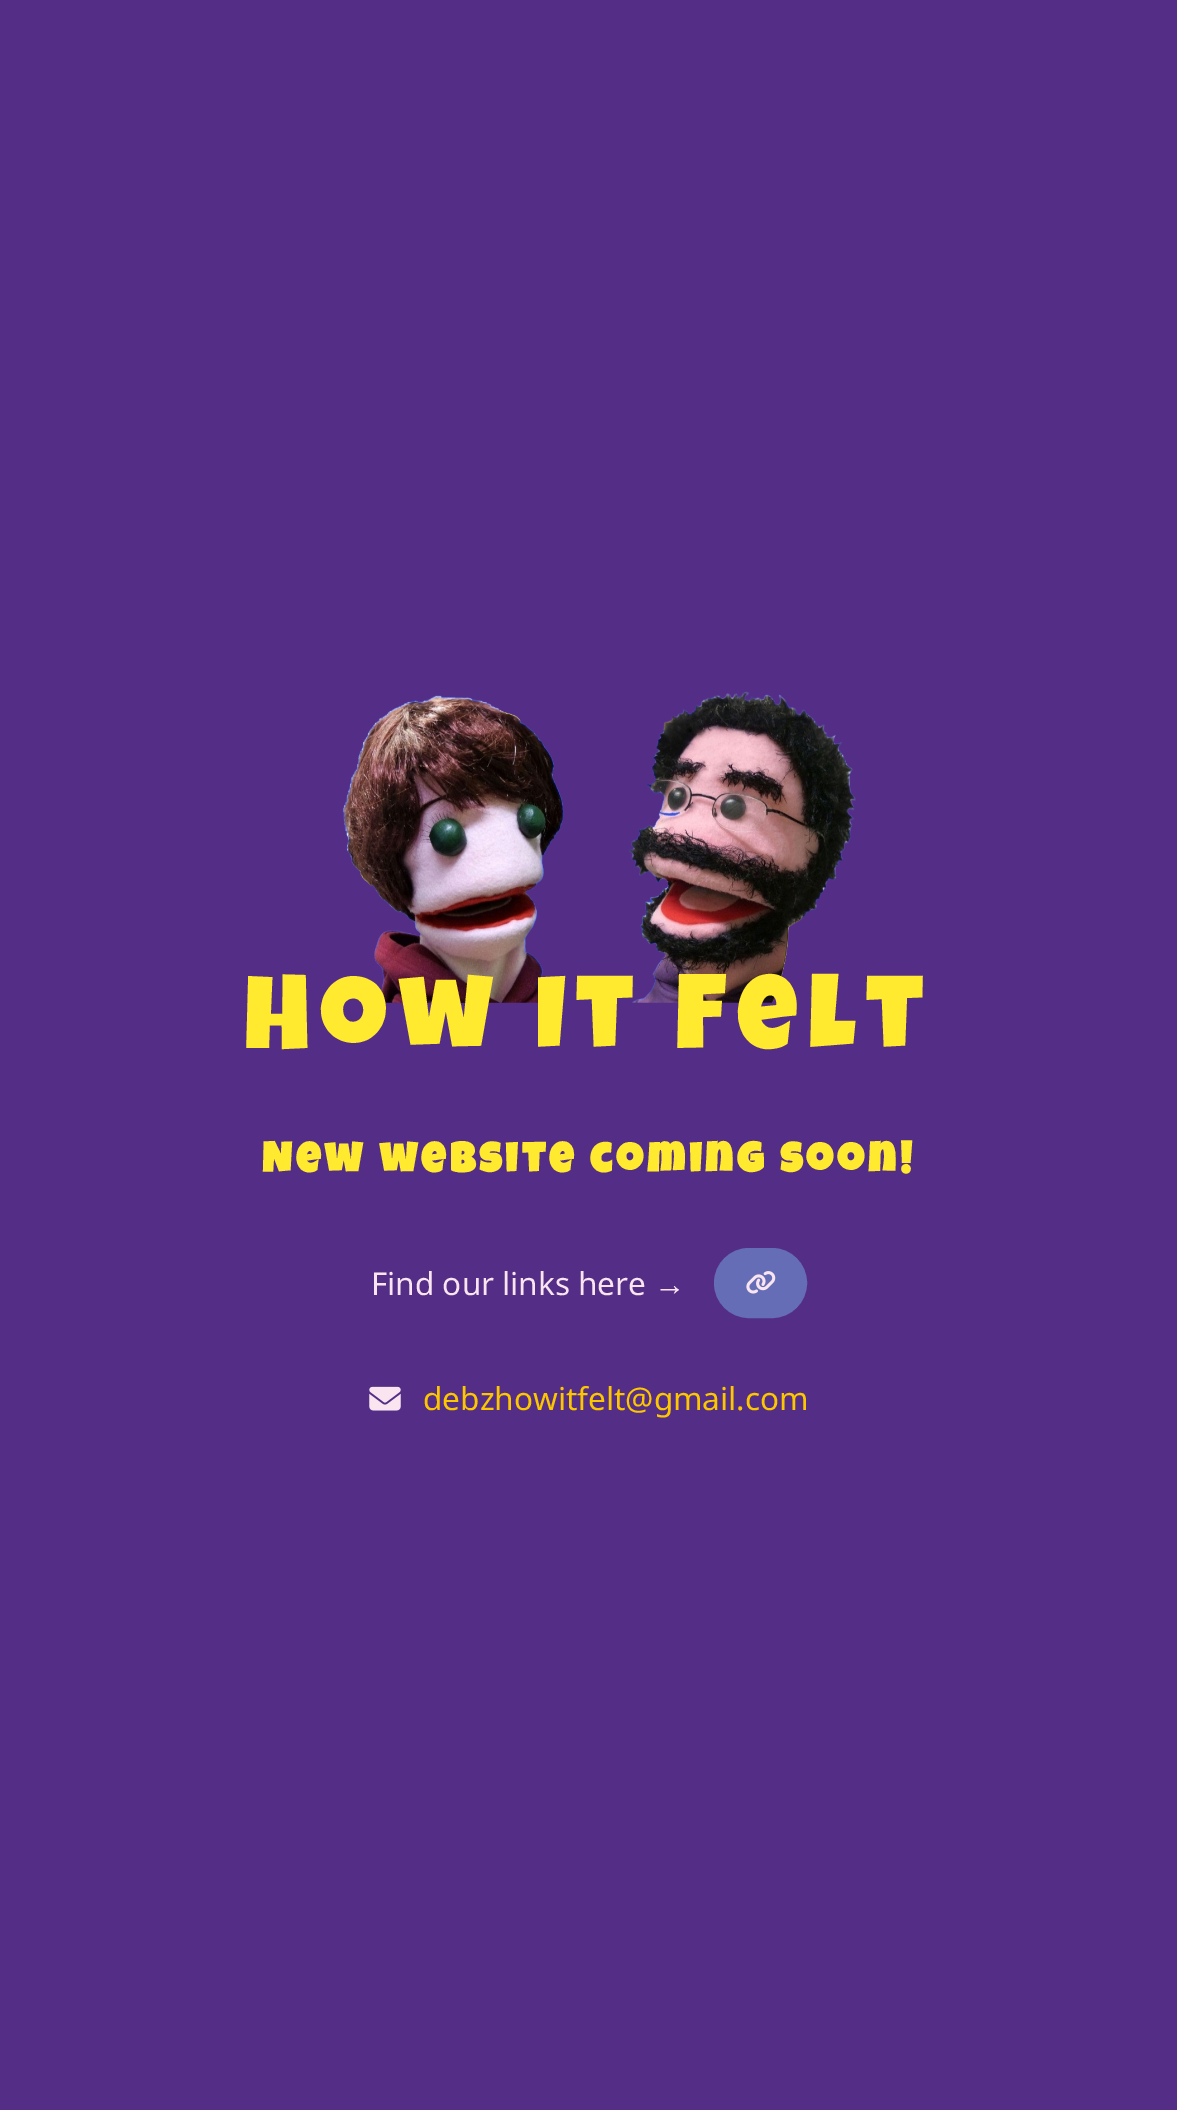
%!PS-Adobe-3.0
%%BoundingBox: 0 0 1177 2110
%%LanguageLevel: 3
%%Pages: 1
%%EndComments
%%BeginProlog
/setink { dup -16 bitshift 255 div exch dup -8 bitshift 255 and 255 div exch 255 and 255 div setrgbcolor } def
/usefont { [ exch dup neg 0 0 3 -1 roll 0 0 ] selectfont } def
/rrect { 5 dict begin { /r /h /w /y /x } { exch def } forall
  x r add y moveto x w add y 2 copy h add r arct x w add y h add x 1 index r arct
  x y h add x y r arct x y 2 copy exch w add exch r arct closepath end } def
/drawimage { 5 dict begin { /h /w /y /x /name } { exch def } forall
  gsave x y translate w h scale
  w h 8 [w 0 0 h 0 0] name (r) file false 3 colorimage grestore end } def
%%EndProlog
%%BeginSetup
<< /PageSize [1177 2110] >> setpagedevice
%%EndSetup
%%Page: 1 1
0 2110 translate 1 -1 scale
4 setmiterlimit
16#542E86 setink
0 0 1177 2110 rectfill
(img1.raw) 342 691 514 312 drawimage
/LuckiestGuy-Regular 105 usefont
16#FFEA30 setink
244 1048 moveto 10.5 0 (How It Felt) ashow
/LuckiestGuy-Bold 42 usefont
262 1172 moveto 4.2 0 (New website coming soon!) ashow
/NotoSans-Regular 31.5 usefont
16#F9E4F0 setink
371 1295 moveto (Find our links here) show
/LiberationSans-Regular 31.5 usefont
654 1295 moveto (→) show
16#646DB5 setink
716 1250 89 66 33 rrect gsave fill grestore
4 setlinewidth
stroke
(img2.raw) 746 1271 30 23 drawimage
(img3.raw) 369 1386 32 25 drawimage
/NotoSans-Regular 31.5 usefont
16#FDC700 setink
423 1410 moveto (debzhowitfelt@gmail.com) show
showpage
%%EOF
